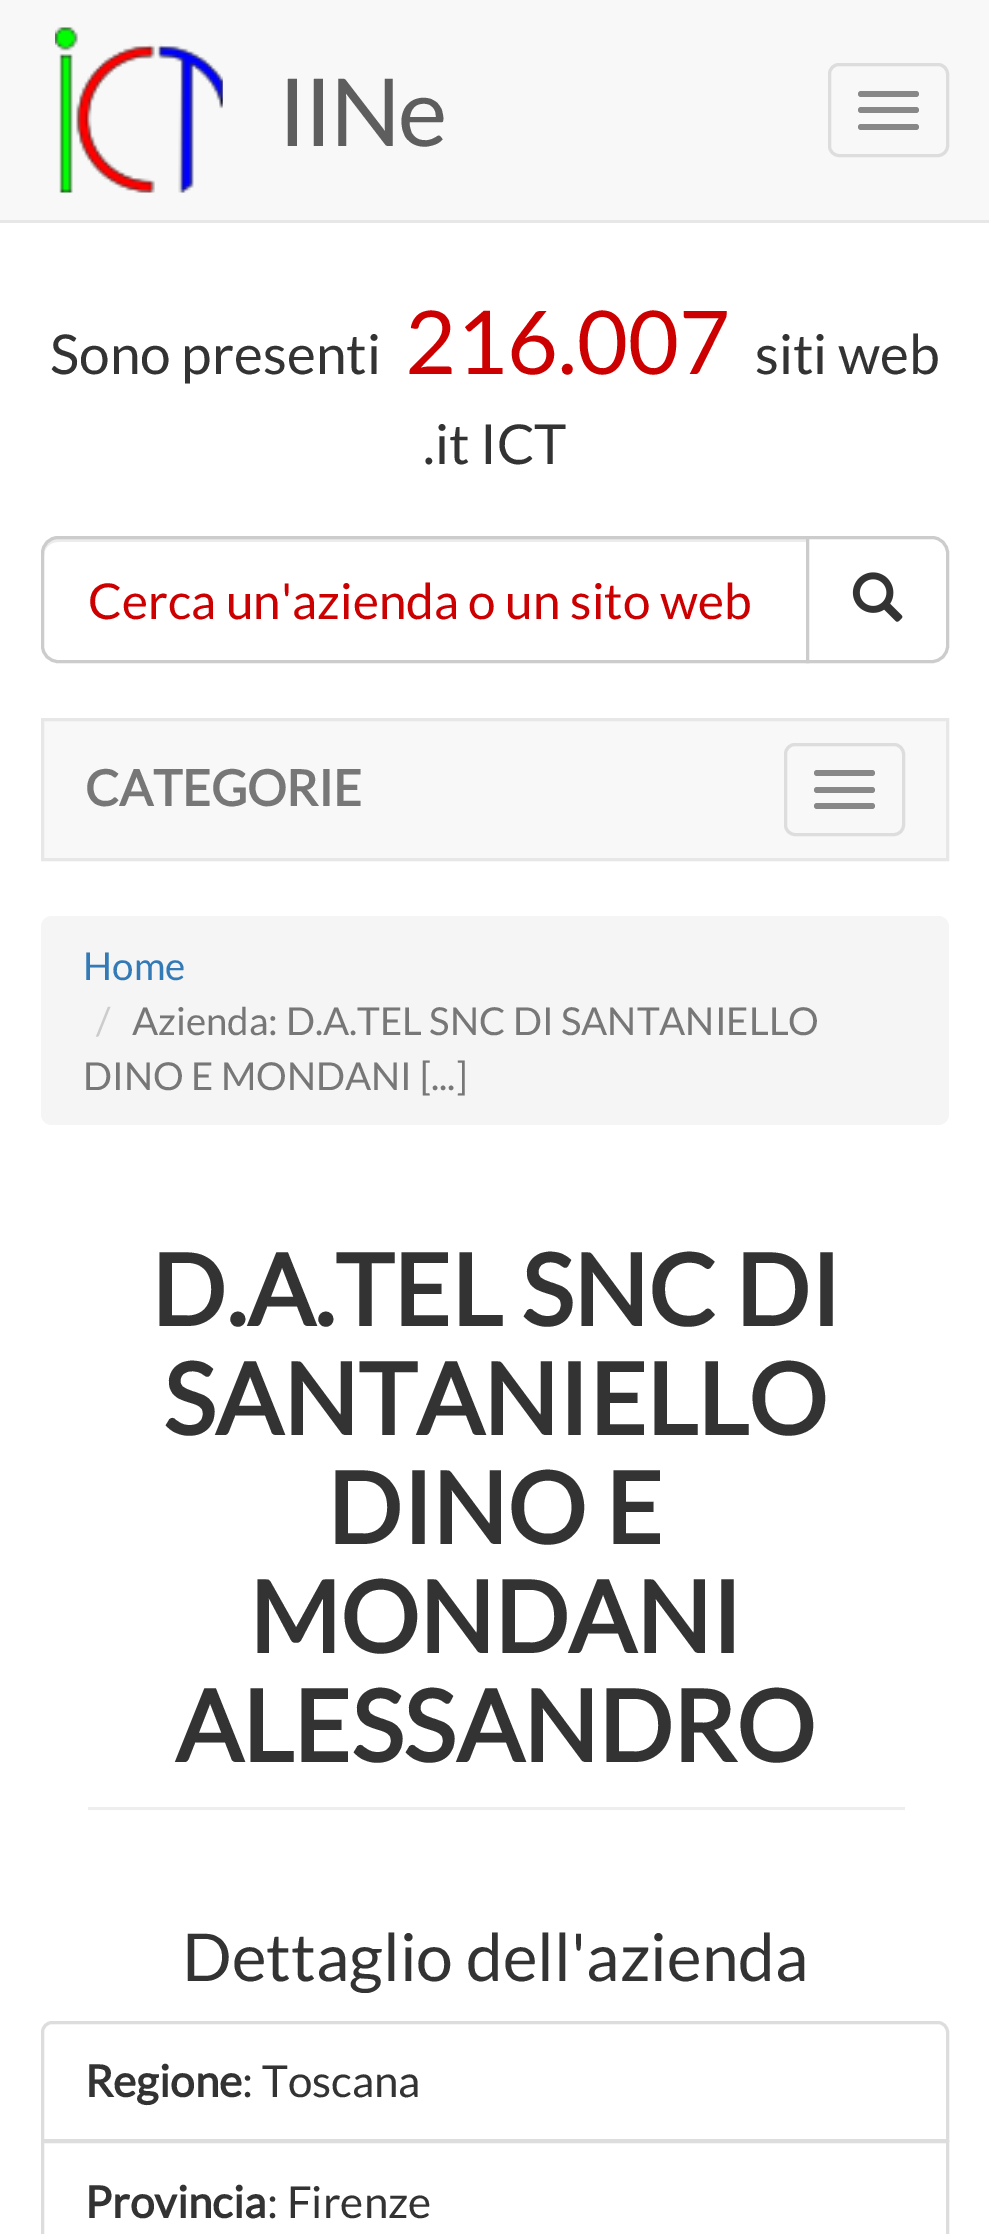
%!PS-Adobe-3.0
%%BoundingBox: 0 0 989 2234
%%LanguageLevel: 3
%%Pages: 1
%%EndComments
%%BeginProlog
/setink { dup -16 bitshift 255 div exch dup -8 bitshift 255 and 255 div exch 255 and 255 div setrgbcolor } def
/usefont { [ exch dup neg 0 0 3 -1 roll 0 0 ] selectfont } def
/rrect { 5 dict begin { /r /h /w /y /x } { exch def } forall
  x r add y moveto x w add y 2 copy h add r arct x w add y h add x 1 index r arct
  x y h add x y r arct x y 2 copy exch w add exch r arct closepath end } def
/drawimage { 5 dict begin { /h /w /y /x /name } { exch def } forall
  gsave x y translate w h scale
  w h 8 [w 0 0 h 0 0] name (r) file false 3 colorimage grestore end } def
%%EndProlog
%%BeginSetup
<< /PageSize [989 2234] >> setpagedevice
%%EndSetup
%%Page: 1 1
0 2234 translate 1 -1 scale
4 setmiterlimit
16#FFFFFF setink
0 0 989 2234 rectfill
16#F8F8F8 setink
0 0 989 220 rectfill
16#E7E7E7 setink
0 220 989 3 rectfill
(img1.raw) 55 27 168 166 drawimage
/Lato-Regular 94 usefont
16#5E5E5E setink
278 146 moveto -3 0 (IINe) ashow
16#DDDDDD setink
3 setlinewidth
829.5 64.5 118 91 9.5 rrect stroke
16#888888 setink
858 91 61 6 3 rrect fill
858 107 61 6 3 rrect fill
858 124 61 6 3 rrect fill
/Lato-Regular 55 usefont
16#333333 setink
50 374 moveto (Sono presenti) show
/Lato-Regular 88 usefont
16#CC0000 setink
405 374 moveto (216.007) show
/Lato-Regular 55 usefont
16#333333 setink
755 374 moveto (siti web) show
423 464 moveto (.it ICT) show
16#ECECEC setink
58 542 moveto 806 542 lineto 806 539 lineto 58 539 lineto 48 539 44 547 44 556 curveto 44 548 50 542 58 542 curveto closepath fill
16#CCCCCC setink
58 537.5 moveto 807.5 537.5 lineto 807.5 661.5 lineto 58 661.5 lineto 49.5 661.5 42.5 654.5 42.5 646 curveto 42.5 553 lineto 42.5 544.5 49.5 537.5 58 537.5 curveto closepath stroke
/Lato-Regular 49.5 usefont
16#CC0000 setink
88 619 moveto (Cerca un'azienda o un sito web) show
16#FFFFFF setink
807.5 537.5 moveto 932 537.5 lineto 940.5 537.5 947.5 544.5 947.5 553 curveto 947.5 646 lineto 947.5 654.5 940.5 661.5 932 661.5 curveto 807.5 661.5 lineto closepath gsave fill grestore
16#CCCCCC setink
stroke
(img2.raw) 852 572 51 50 drawimage
16#F8F8F8 setink
42.5 719.5 moveto 947.5 719.5 lineto 947.5 859.5 lineto 42.5 859.5 lineto closepath gsave fill grestore
16#E7E7E7 setink
stroke
/Lato-Bold 49.5 usefont
16#777777 setink
85 806 moveto (CATEGORIE) show
16#DDDDDD setink
785.5 744.5 118 90 9.5 rrect stroke
16#888888 setink
814 770 61 6 3 rrect fill
814 787 61 6 3 rrect fill
814 803 61 6 3 rrect fill
16#F5F5F5 setink
41 916 908 209 11 rrect fill
/Lato-Regular 38.5 usefont
16#337AB7 setink
83 980 moveto (Home) show
16#CCCCCC setink
96 1035 moveto (/) show
16#777777 setink
132 1035 moveto (Azienda: D.A.TEL SNC DI SANTANIELLO) show
83 1090 moveto (DINO E MONDANI [...]) show
16#EEEEEE setink
88 1807 817 3 rectfill
/Lato-Bold 99 usefont
16#333333 setink
[
    [(D.A.TEL SNC DI) 151 1326]
    [(SANTANIELLO) 163 1435]
    [(DINO E) 327 1544]
    [(MONDANI) 249 1653]
    [(ALESSANDRO) 175 1762]
] { aload pop moveto show } forall
/Lato-Regular 66 usefont
182 1981 moveto (Dettaglio dell'azienda) show
16#DDDDDD setink
52 2022.5 moveto 938 2022.5 lineto 943 2022.5 947.5 2027 947.5 2032 curveto 947.5 2140.5 lineto 42.5 2140.5 lineto 42.5 2032 lineto 42.5 2027 47 2022.5 52 2022.5 curveto closepath stroke
/Lato-Bold 44 usefont
16#333333 setink
85 2097 moveto (Regione) show
/Lato-Regular 44 usefont
242 2097 moveto (: Toscana) show
16#DDDDDD setink
42.5 2141.5 905 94 rectstroke
/Lato-Bold 44 usefont
16#333333 setink
85 2218 moveto (Provincia) show
/Lato-Regular 44 usefont
267 2218 moveto (: Firenze) show
showpage
%%EOF
